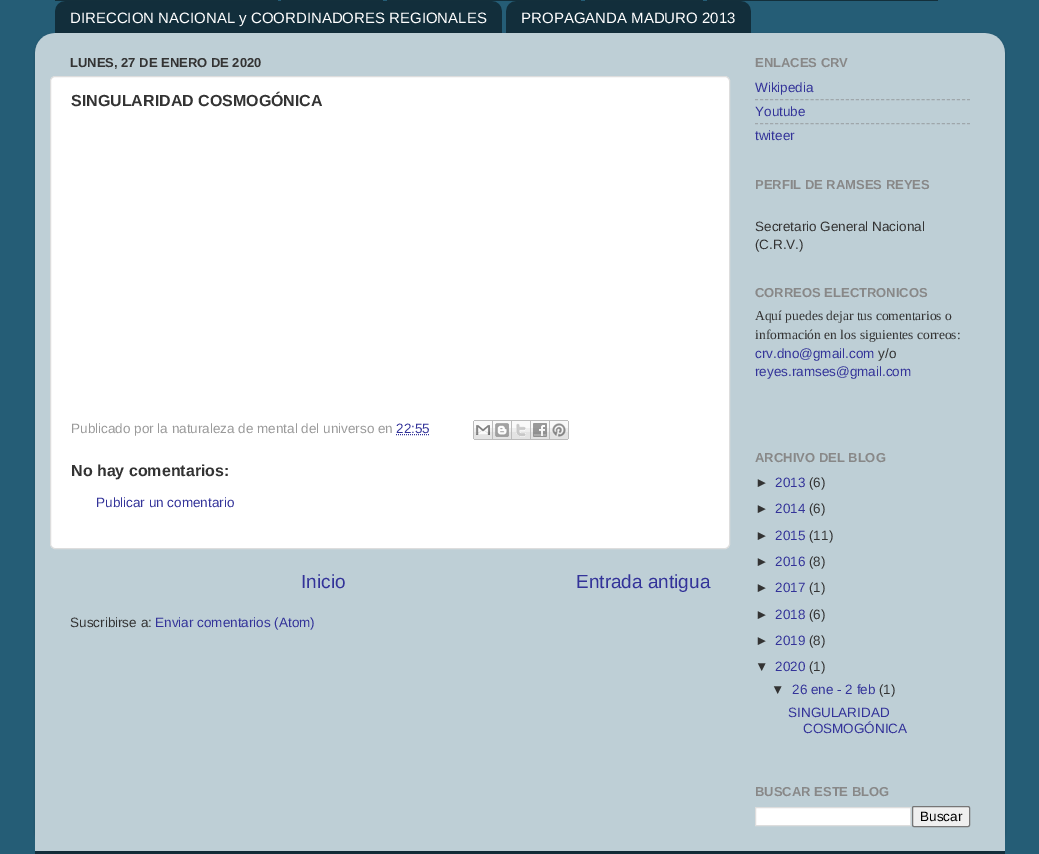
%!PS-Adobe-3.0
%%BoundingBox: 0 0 1039 854
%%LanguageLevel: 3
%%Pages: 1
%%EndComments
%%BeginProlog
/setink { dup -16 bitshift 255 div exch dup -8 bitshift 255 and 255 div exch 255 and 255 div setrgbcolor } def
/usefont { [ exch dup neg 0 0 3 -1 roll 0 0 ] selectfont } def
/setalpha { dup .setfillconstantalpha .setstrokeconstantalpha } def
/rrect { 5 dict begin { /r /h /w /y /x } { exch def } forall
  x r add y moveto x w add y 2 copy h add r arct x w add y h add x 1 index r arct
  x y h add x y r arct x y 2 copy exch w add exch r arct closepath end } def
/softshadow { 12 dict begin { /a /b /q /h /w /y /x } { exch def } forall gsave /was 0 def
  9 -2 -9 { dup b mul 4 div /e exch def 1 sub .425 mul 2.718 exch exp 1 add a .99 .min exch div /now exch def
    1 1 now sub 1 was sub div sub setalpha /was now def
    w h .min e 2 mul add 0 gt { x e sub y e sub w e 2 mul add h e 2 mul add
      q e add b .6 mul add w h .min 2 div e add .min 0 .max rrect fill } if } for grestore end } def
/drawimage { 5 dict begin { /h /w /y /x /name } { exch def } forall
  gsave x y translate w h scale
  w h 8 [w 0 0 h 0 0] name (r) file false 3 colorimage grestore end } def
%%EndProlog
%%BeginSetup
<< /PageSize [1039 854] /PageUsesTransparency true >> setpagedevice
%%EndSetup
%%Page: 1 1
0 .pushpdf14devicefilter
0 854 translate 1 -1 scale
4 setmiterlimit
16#255D76 setink
0 0 1039 854 rectfill
[
    [55 0 223 1 16#132F3B]
    [281 0 102 1 16#132F3B]
    [387 0 194 1 16#132F3B]
    [585 0 118 1 16#132F3B]
    [707 0 231 1 16#132F3B]
] { aload pop setink rectfill } forall
(img1.raw) 55 1 447 32 drawimage
/LiberationSans-Regular 15 usefont
16#FFFFFF setink
70 23 moveto (DIRECCION NACIONAL y COORDINADORES REGIONALES) show
(img2.raw) 506 1 245 32 drawimage
521 23 moveto (PROPAGANDA MADURO 2013) show
gsave
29 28 moveto 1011 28 lineto 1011 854 lineto 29 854 lineto closepath 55 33 moveto 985 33 lineto 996 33 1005 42 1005 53 curveto 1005 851 lineto 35 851 lineto 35 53 lineto 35 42 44 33 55 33 curveto closepath eoclip newpath
16#000000 setink
35 34 970 818 20 1.5 0.15 softshadow
grestore
(img3.raw) 35 33 970 818 drawimage
/LiberationSans-Bold 13 usefont
16#333333 setink
70 67 moveto (LUNES, 27 DE ENERO DE 2020) show
16#FFFFFF setink
50.5 76.5 679 472 4.5 rrect gsave fill grestore
16#DDDDDD setink
stroke
/LiberationSans-Bold 16 usefont
16#333333 setink
71 106 moveto (SINGULARIDAD COSMOGÓNICA) show
/LiberationSans-Regular 13.5 usefont
16#999999 setink
71 433 moveto (Publicado por la naturaleza de mental del universo en) show
16#333399 setink
396 433 moveto (22:55) show
[1 1] 0 setdash
396 434.5 moveto 430 434.5 lineto stroke
(img4.raw) 473 420 20 20 drawimage
(img5.raw) 493 420 19 20 drawimage
(img6.raw) 512 420 19 20 drawimage
(img7.raw) 531 420 19 20 drawimage
(img8.raw) 550 420 19 20 drawimage
/LiberationSans-Bold 16 usefont
16#333333 setink
71 476 moveto (No hay comentarios:) show
/LiberationSans-Regular 13.5 usefont
16#333399 setink
96 507 moveto (Publicar un comentario) show
/LiberationSans-Regular 19 usefont
301 588 moveto (Inicio) show
576 588 moveto (Entrada antigua) show
/LiberationSans-Regular 13.5 usefont
16#333333 setink
70 627 moveto (Suscribirse a:) show
16#333399 setink
155 627 moveto (Enviar comentarios \(Atom\)) show
/LiberationSans-Bold 13 usefont
16#888888 setink
755 67 moveto (ENLACES CRV) show
/LiberationSans-Regular 13.5 usefont
16#333399 setink
755 92 moveto (Wikipedia) show
16#9FA7AB setink
[3 2.05] 0 setdash
755 99.5 moveto 970 99.5 lineto stroke
16#333399 setink
755 116 moveto (Youtube) show
16#9FA7AB setink
755 123.5 moveto 970 123.5 lineto stroke
16#333399 setink
755 140 moveto (twiteer) show
/LiberationSans-Bold 13 usefont
16#888888 setink
755 189 moveto (PERFIL DE RAMSES REYES) show
/LiberationSans-Regular 13.5 usefont
16#333333 setink
755 231 moveto (Secretario General Nacional) show
755 249 moveto (\(C.R.V.\)) show
/LiberationSans-Bold 13 usefont
16#888888 setink
755 297 moveto (CORREOS ELECTRONICOS) show
/LiberationSerif-Regular 13.5 usefont
16#333333 setink
755 320 moveto (Aquí puedes dejar tus comentarios o) show
755 339 moveto (información en los siguientes correos:) show
/LiberationSans-Regular 13.5 usefont
16#333399 setink
755 358 moveto (crv.dno@gmail.com) show
16#333333 setink
878 358 moveto (y/o) show
16#333399 setink
755 376 moveto (reyes.ramses@gmail.com) show
/LiberationSans-Bold 13 usefont
16#888888 setink
755 462 moveto (ARCHIVO DEL BLOG) show
/LiberationSans-Regular 13.5 usefont
16#333333 setink
755 487 moveto (►) show
16#333399 setink
775 487 moveto (2013) show
16#333333 setink
809 487 moveto (\(6\)) show
755 513 moveto (►) show
16#333399 setink
775 513 moveto (2014) show
16#333333 setink
809 513 moveto (\(6\)) show
755 540 moveto (►) show
16#333399 setink
775 540 moveto (2015) show
16#333333 setink
809 540 moveto (\(11\)) show
755 566 moveto (►) show
16#333399 setink
775 566 moveto (2016) show
16#333333 setink
809 566 moveto (\(8\)) show
755 592 moveto (►) show
16#333399 setink
775 592 moveto (2017) show
16#333333 setink
809 592 moveto (\(1\)) show
755 619 moveto (►) show
16#333399 setink
775 619 moveto (2018) show
16#333333 setink
809 619 moveto (\(6\)) show
755 645 moveto (►) show
16#333399 setink
775 645 moveto (2019) show
16#333333 setink
809 645 moveto (\(8\)) show
755 671 moveto (▼) show
16#333399 setink
775 671 moveto (2020) show
16#333333 setink
809 671 moveto (\(1\)) show
771 694 moveto (▼) show
16#333399 setink
792 694 moveto (26 ene - 2 feb) show
16#333333 setink
879 694 moveto (\(1\)) show
16#333399 setink
788 717 moveto (SINGULARIDAD) show
803 733 moveto (COSMOGÓNICA) show
/LiberationSans-Bold 13 usefont
16#888888 setink
755 796 moveto (BUSCAR ESTE BLOG) show
16#FFFFFF setink
755.5 807.5 moveto 910.5 807.5 lineto 910.5 825.5 lineto 755.5 825.5 lineto closepath gsave fill grestore
16#DDDDDD setink
[] 0 setdash
stroke
16#EFEFEF setink
912.5 806.5 57 20 1.5 rrect gsave fill grestore
16#767676 setink
stroke
/LiberationSans-Regular 13.5 usefont
16#000000 setink
920 821 moveto (Buscar) show
0.5 setalpha
35 851 970 3 rectfill
.poppdf14devicefilter showpage
%%EOF
